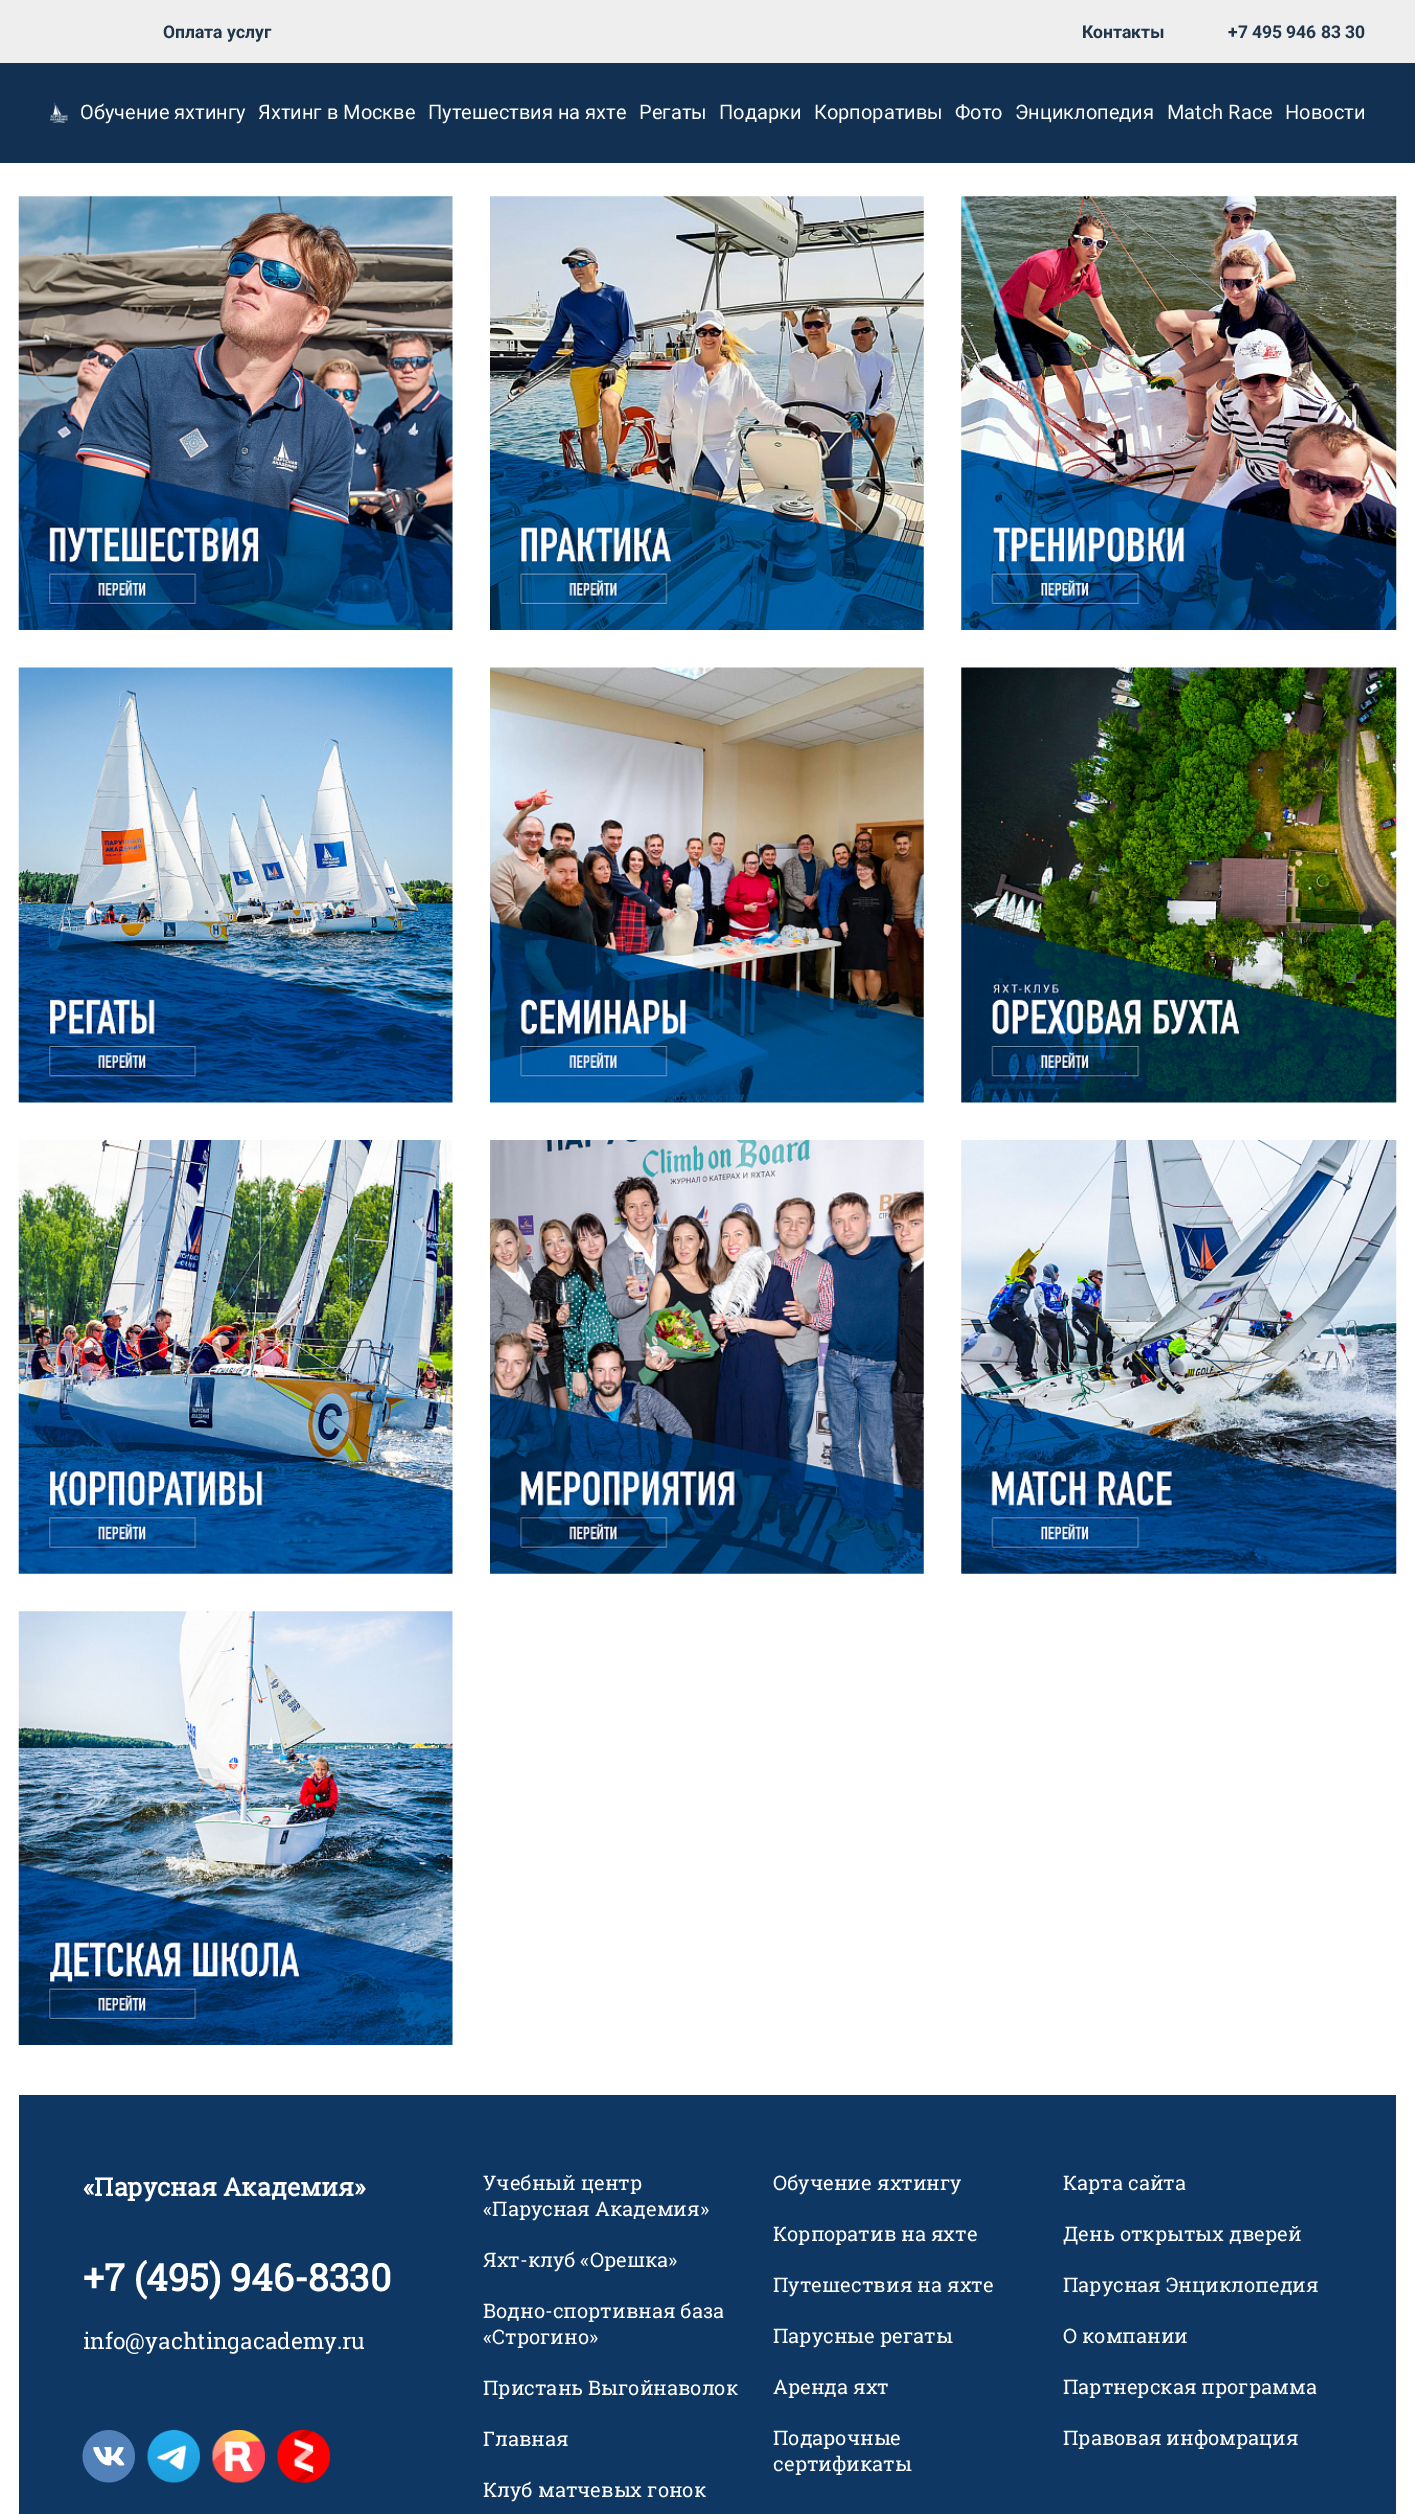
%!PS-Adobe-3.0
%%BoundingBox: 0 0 1415 2514
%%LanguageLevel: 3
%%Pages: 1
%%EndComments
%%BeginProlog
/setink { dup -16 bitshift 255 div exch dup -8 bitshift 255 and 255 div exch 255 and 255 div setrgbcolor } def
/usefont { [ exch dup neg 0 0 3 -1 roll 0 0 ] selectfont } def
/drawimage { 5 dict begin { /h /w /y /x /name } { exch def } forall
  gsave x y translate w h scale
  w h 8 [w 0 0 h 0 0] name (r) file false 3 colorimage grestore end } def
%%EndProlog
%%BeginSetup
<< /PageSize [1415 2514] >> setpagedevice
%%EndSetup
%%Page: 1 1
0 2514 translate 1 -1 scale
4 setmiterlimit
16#FFFFFF setink
0 0 1415 2514 rectfill
16#EEEEEE setink
0 0 1415 63 rectfill
/Roboto-Bold 17.5 usefont
16#21364A setink
[
    [(Оплата услуг) 163 38]
    [(Контакты) 1082 38]
    [(+7 495 946 83 30) 1228 38]
] { aload pop moveto show } forall
16#113052 setink
0 63 1415 100 rectfill
(img1.raw) 50 102 18 21 drawimage
/Roboto-Regular 20 usefont
16#FFFFFF setink
[
    [(Обучение яхтингу) 80 119]
    [(Яхтинг в Москве) 258 119]
    [(Путешествия на яхте) 428 119]
    [(Регаты) 639 119]
    [(Подарки) 719 119]
    [(Корпоративы) 814 119]
    [(Фото) 955 119]
    [(Энциклопедия) 1015 119]
    [(Match Race) 1167 119]
    [(Новости) 1285 119]
] { aload pop moveto show } forall
(img2.raw) 18 196 435 434 drawimage
(img3.raw) 490 196 434 434 drawimage
(img4.raw) 961 196 436 434 drawimage
(img5.raw) 18 667 435 436 drawimage
(img6.raw) 490 667 434 436 drawimage
(img7.raw) 961 667 436 436 drawimage
(img8.raw) 18 1140 435 434 drawimage
(img9.raw) 490 1140 434 434 drawimage
(img10.raw) 961 1140 436 434 drawimage
(img11.raw) 18 1611 435 434 drawimage
16#0F3763 setink
19 2095 1377 419 rectfill
/RobotoSlab-Bold 25 usefont
16#FFFFFF setink
83 2196 moveto («Парусная Академия») show
/RobotoSlab-Bold 37.5 usefont
83 2291 moveto (+7 \(495\) 946-8330) show
/RobotoSlab-Regular 22.5 usefont
83 2349 moveto (info@yachtingacademy.ru) show
(img12.raw) 82 2430 53 53 drawimage
(img13.raw) 147 2430 53 53 drawimage
(img14.raw) 212 2430 53 53 drawimage
(img15.raw) 277 2430 53 53 drawimage
/RobotoSlab-Regular 20 usefont
[
    [(Учебный центр) 483 2190]
    [(«Парусная Академия») 483 2216]
    [(Обучение яхтингу) 773 2190]
    [(Карта сайта) 1063 2190]
    [(Корпоратив на яхте) 773 2241]
    [(День открытых дверей) 1063 2241]
    [(Яхт-клуб «Орешка») 483 2267]
    [(Путешествия на яхте) 773 2292]
    [(Парусная Энциклопедия) 1063 2292]
    [(Водно-спортивная база) 483 2318]
    [(«Строгино») 483 2344]
    [(Парусные регаты) 773 2343]
    [(О компании) 1063 2343]
    [(Пристань Выгойнаволок) 483 2395]
    [(Аренда яхт) 773 2394]
    [(Партнерская программа) 1063 2394]
    [(Главная) 483 2446]
    [(Подарочные) 773 2445]
    [(сертификаты) 773 2471]
    [(Правовая инфомрация) 1063 2445]
    [(Клуб матчевых гонок) 483 2497]
] { aload pop moveto show } forall
showpage
%%EOF
